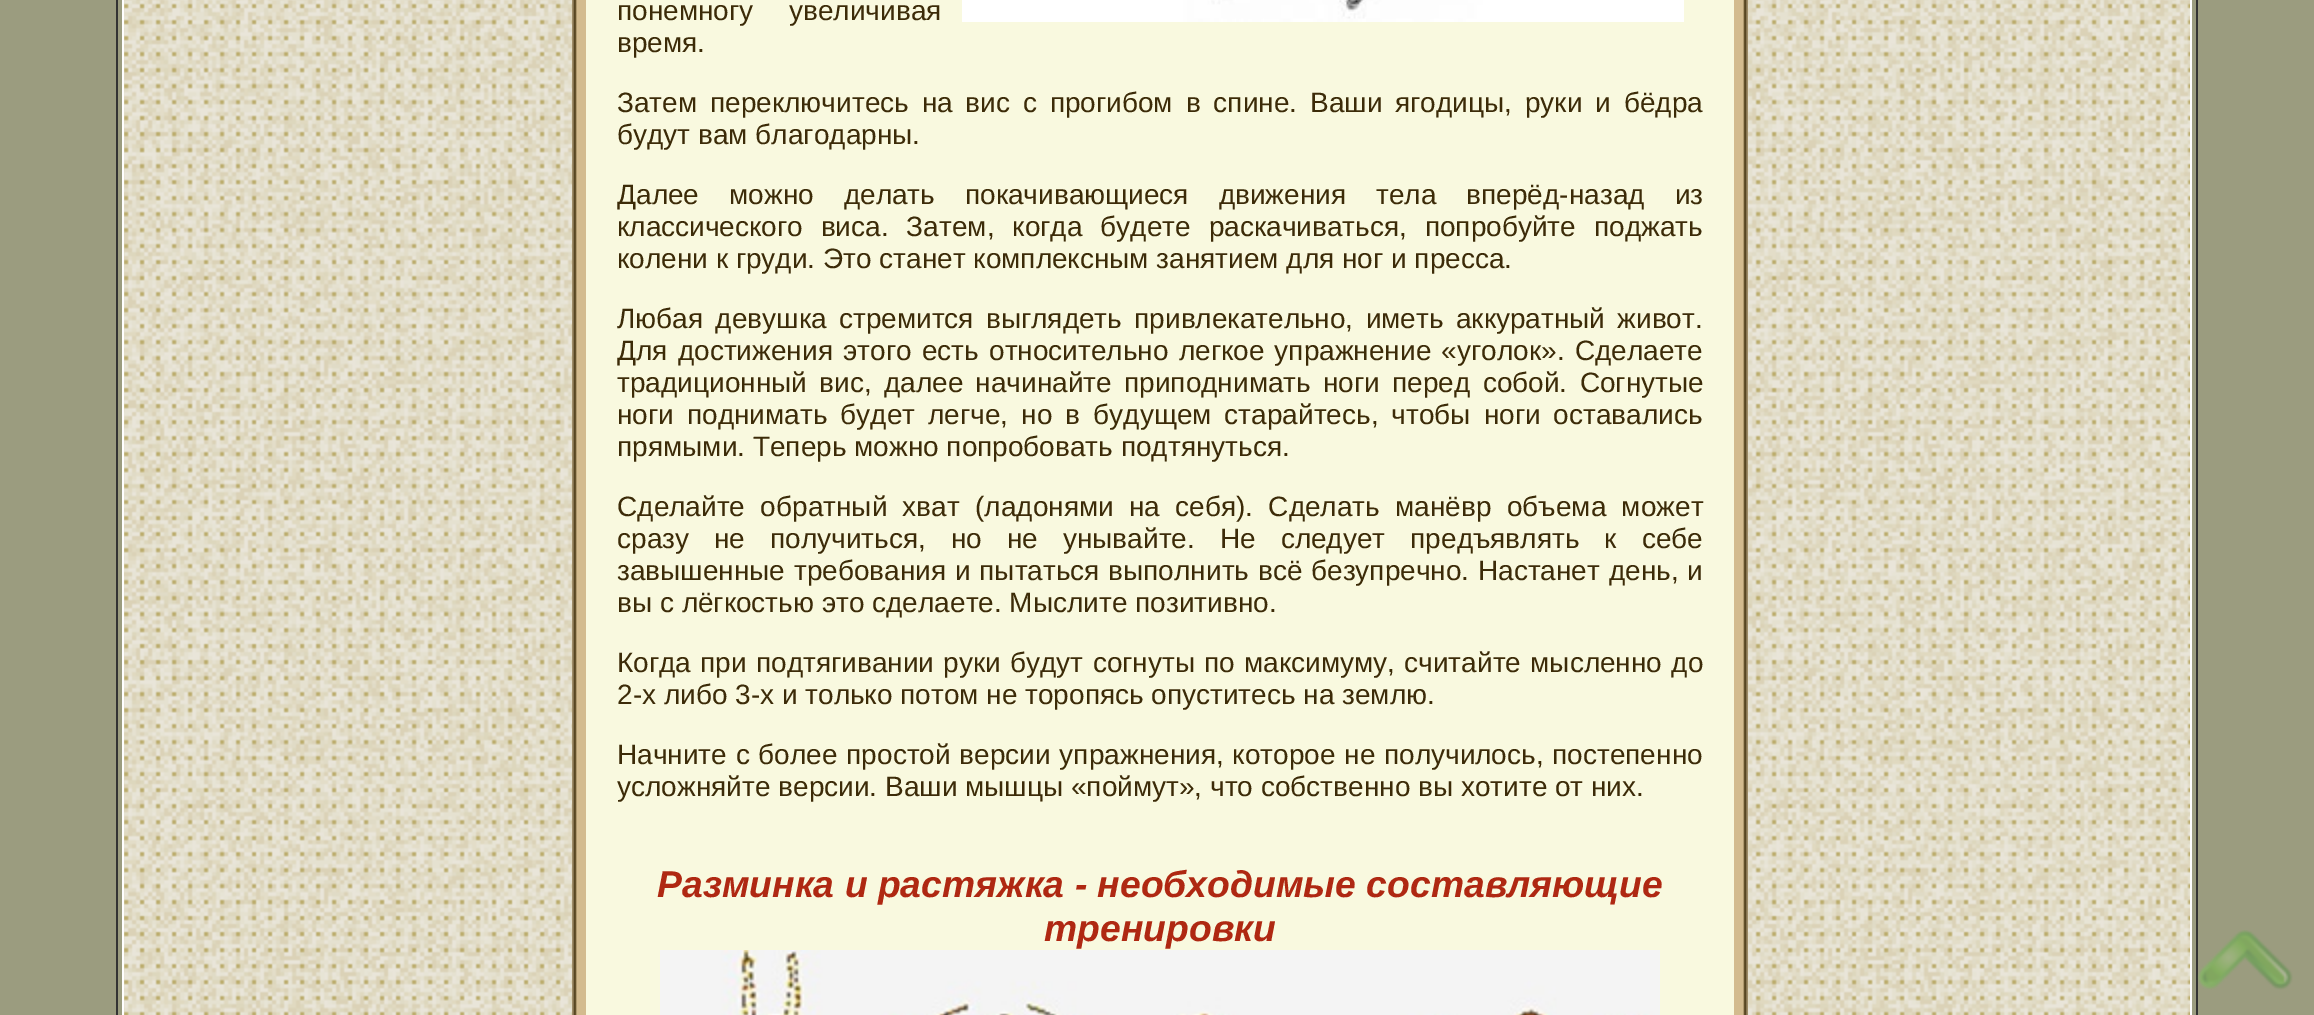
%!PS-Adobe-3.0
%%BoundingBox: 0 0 2314 1015
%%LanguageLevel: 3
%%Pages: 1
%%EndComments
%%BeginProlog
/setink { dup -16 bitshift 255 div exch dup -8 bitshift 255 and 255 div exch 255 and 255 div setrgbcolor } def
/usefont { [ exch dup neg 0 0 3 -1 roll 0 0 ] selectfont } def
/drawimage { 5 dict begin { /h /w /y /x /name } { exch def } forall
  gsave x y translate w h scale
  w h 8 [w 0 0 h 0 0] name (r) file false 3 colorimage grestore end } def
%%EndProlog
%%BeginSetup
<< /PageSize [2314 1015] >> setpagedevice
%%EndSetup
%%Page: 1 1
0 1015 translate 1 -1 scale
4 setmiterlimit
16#9B9C7F setink
0 0 2314 1015 rectfill
16#333333 setink
116 0 2 1015 rectfill
(img1.raw) 124 0 2066 1015 drawimage
16#FFFFFF setink
2190 0 2 1015 rectfill
122 0 2 1015 rectfill
(img2.raw) 572 0 14 1015 drawimage
16#F9F9DF setink
586 0 1148 1015 rectfill
/LiberationSans-Regular 28 usefont
16#3C2B08 setink
617 20 moveto 28 0 32 (понемногу увеличивая) widthshow
617 52 moveto (время.) show
(img3.raw) 962 0 722 22 drawimage
617 112 moveto 5.1 0 32 (Затем переключитесь на вис с прогибом в спине. Ваши ягодицы, руки и бёдра) widthshow
617 144 moveto (будут вам благодарны.) show
617 204 moveto 22.25 0 32 (Далее можно делать покачивающиеся движения тела вперёд-назад из) widthshow
617 236 moveto 10.25 0 32 (классического виса. Затем, когда будете раскачиваться, попробуйте поджать) widthshow
617 268 moveto (колени к груди. Это станет комплексным занятием для ног и пресса.) show
617 328 moveto 4.5 0 32 (Любая девушка стремится выглядеть привлекательно, иметь аккуратный живот.) widthshow
617 360 moveto 2.5 0 32 (Для достижения этого есть относительно легкое упражнение «уголок». Сделаете) widthshow
617 392 moveto 4.5 0 32 (традиционный вис, далее начинайте приподнимать ноги перед собой. Согнутые) widthshow
617 424 moveto 5.25 0 32 (ноги поднимать будет легче, но в будущем старайтесь, чтобы ноги оставались) widthshow
617 456 moveto (прямыми. Теперь можно попробовать подтянуться.) show
617 516 moveto 7.5 0 32 (Сделайте обратный хват \(ладонями на себя\). Сделать манёвр объема может) widthshow
617 548 moveto 17.25 0 32 (сразу не получиться, но не унывайте. Не следует предъявлять к себе) widthshow
617 580 moveto 1 0 32 (завышенные требования и пытаться выполнить всё безупречно. Настанет день, и) widthshow
617 612 moveto (вы с лёгкостью это сделаете. Мыслите позитивно.) show
617 672 moveto 1.5 0 32 (Когда при подтягивании руки будут согнуты по максимуму, считайте мысленно до) widthshow
617 704 moveto (2-х либо 3-х и только потом не торопясь опуститесь на землю.) show
617 764 moveto 1 0 32 (Начните с более простой версии упражнения, которое не получилось, постепенно) widthshow
617 796 moveto (усложняйте версии. Ваши мышцы «поймут», что собственно вы хотите от них.) show
/LiberationSans-BoldItalic 37.3 usefont
16#AF2812 setink
657 897 moveto (Разминка и растяжка - необходимые составляющие) show
1044 941 moveto (тренировки) show
(img4.raw) 660 950 1000 65 drawimage
(img5.raw) 1734 0 14 1015 drawimage
16#333333 setink
2196 0 2 1015 rectfill
(img6.raw) 2197 930 96 60 drawimage
showpage
%%EOF
